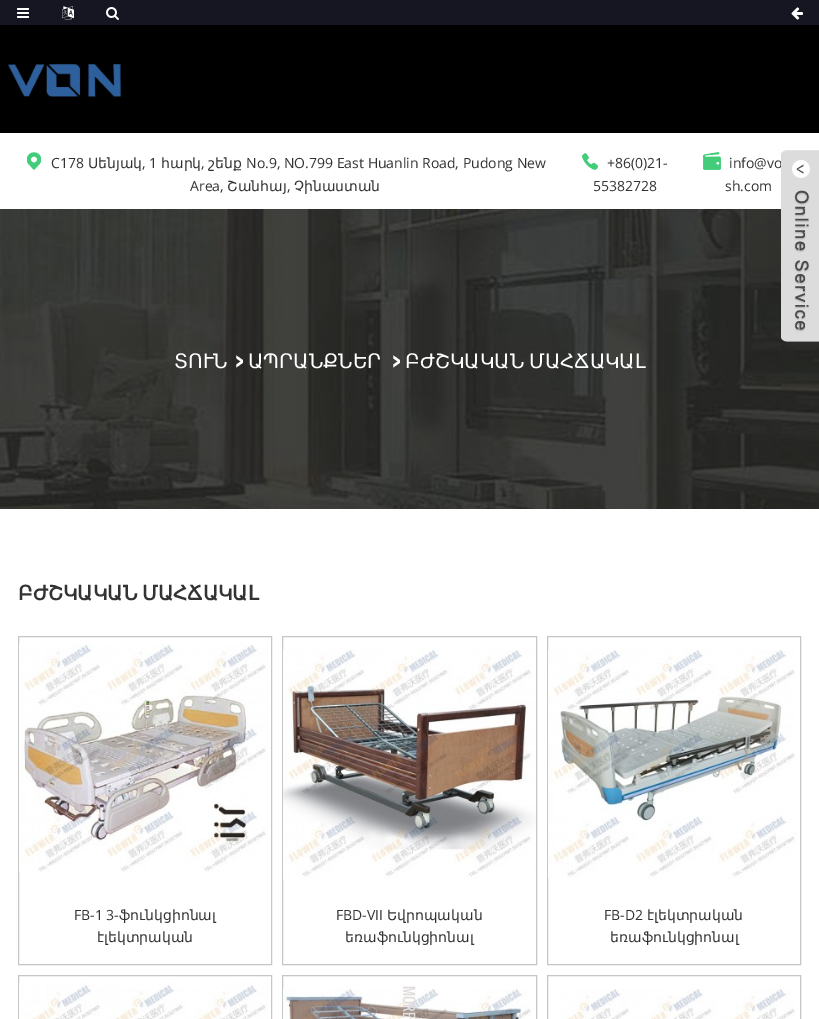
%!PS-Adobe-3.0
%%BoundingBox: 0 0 819 1019
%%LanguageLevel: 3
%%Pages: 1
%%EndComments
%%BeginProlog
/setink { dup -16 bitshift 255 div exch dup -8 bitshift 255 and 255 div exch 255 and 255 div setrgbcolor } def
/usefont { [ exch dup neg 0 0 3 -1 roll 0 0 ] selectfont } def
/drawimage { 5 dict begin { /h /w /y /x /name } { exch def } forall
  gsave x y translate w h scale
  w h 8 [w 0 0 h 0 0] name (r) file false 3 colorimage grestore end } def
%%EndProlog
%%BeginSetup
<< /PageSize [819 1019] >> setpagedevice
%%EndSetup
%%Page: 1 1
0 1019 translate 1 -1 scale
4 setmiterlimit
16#FFFFFF setink
0 0 819 1019 rectfill
16#161622 setink
0 0 819 25 rectfill
(img1.raw) 17 8 12 10 drawimage
(img2.raw) 62 6 12 14 drawimage
(img3.raw) 106 7 13 13 drawimage
(img4.raw) 791 7 12 13 drawimage
16#000000 setink
0 25 819 108 rectfill
(img5.raw) 7 63 115 34 drawimage
(img6.raw) 27 152 14 18 drawimage
/OpenSans-Regular 14 usefont
16#333333 setink
51 168 moveto (C178) show
/DejaVuSans-Regular 14 usefont
88 168 moveto (Սենյակ) show
/OpenSans-Regular 14 usefont
142 168 moveto (, 1) show
/DejaVuSans-Regular 14 usefont
161 168 moveto (հարկ) show
/OpenSans-Regular 14 usefont
201 168 moveto (,) show
/DejaVuSans-Regular 14 usefont
208 168 moveto (շենք) show
/OpenSans-Regular 14 usefont
246 168 moveto (No.9, NO.799 East Huanlin Road, Pudong New) show
190 191 moveto (Area,) show
/DejaVuSans-Regular 14 usefont
227 191 moveto (Շանհայ) show
/OpenSans-Regular 14 usefont
287 191 moveto (,) show
/DejaVuSans-Regular 14 usefont
294 191 moveto (Չինաստան) show
(img7.raw) 582 153 16 17 drawimage
/OpenSans-Regular 14 usefont
607 168 moveto (+86\(0\)21-) show
593 191 moveto (55382728) show
(img8.raw) 703 152 18 18 drawimage
729 168 moveto (info@vo) show
725 191 moveto (sh.com) show
(img10.raw) 0 209 819 300 drawimage
(img9.raw) 781 150 38 192 drawimage
/DejaVuSans-Regular 20 usefont
16#FFFFFF setink
174 368 moveto (ՏՈՒՆ) show
/Oswald-Bold 20 usefont
235 368 moveto (>) show
/DejaVuSans-Regular 20 usefont
248 368 moveto (ԱՊՐԱՆՔՆԵՐ) show
/Oswald-Bold 20 usefont
392 368 moveto (>) show
/DejaVuSans-Regular 20 usefont
405 368 moveto -2 0 32 (ԲԺՇԿԱԿԱՆ ՄԱՀՃԱԿԱԼ) widthshow
/DejaVuSans-Bold 20 usefont
16#333333 setink
18 600 moveto -2 0 32 (ԲԺՇԿԱԿԱՆ ՄԱՀՃԱԿԱԼ) widthshow
16#C6C6C6 setink
18.5 636.5 253 328 rectstroke
(img11.raw) 19 644 249 228 drawimage
/OpenSans-Regular 14 usefont
16#333333 setink
74 920 moveto (FB-1 3-) show
/DejaVuSans-Regular 14 usefont
119 920 moveto (ֆունկցիոնալ) show
97 942 moveto (էլեկտրական) show
16#C6C6C6 setink
282.5 636.5 254 328 rectstroke
(img12.raw) 283 650 253 229 drawimage
/OpenSans-Regular 14 usefont
16#333333 setink
336 920 moveto (FBD-VII) show
/DejaVuSans-Regular 14 usefont
387 920 moveto (Եվրոպական) show
345 942 moveto (եռաֆունկցիոնալ) show
16#C6C6C6 setink
547.5 636.5 253 328 rectstroke
(img13.raw) 548 650 248 228 drawimage
/OpenSans-Regular 14 usefont
16#333333 setink
604 920 moveto (FB-D2) show
/DejaVuSans-Regular 14 usefont
647 920 moveto (էլեկտրական) show
610 942 moveto (եռաֆունկցիոնալ) show
16#C6C6C6 setink
18.5 975.5 253 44 rectstroke
(img14.raw) 19 983 248 36 drawimage
282.5 975.5 254 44 rectstroke
(img15.raw) 283 989 248 30 drawimage
/Oswald-Regular 14 usefont
16#E1DDDC setink
gsave 403 986 translate 90 rotate 0 0 moveto (MORE) show grestore
16#C6C6C6 setink
547.5 975.5 253 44 rectstroke
(img16.raw) 562 989 233 30 drawimage
showpage
%%EOF
